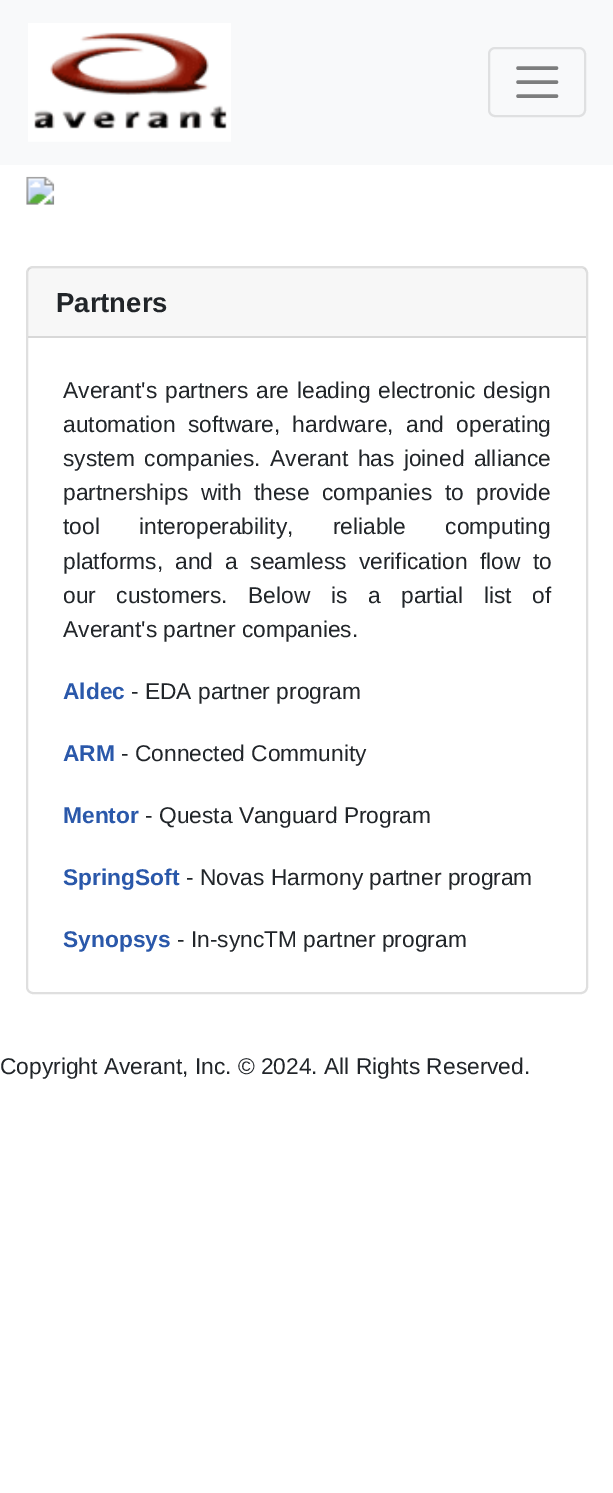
%!PS-Adobe-3.0
%%BoundingBox: 0 0 613 1493
%%LanguageLevel: 3
%%Pages: 1
%%EndComments
%%BeginProlog
/setink { dup -16 bitshift 255 div exch dup -8 bitshift 255 and 255 div exch 255 and 255 div setrgbcolor } def
/usefont { [ exch dup neg 0 0 3 -1 roll 0 0 ] selectfont } def
/setalpha { dup .setfillconstantalpha .setstrokeconstantalpha } def
/rrect { 5 dict begin { /r /h /w /y /x } { exch def } forall
  x r add y moveto x w add y 2 copy h add r arct x w add y h add x 1 index r arct
  x y h add x y r arct x y 2 copy exch w add exch r arct closepath end } def
/drawimage { 5 dict begin { /h /w /y /x /name } { exch def } forall
  gsave x y translate w h scale
  w h 8 [w 0 0 h 0 0] name (r) file false 3 colorimage grestore end } def
%%EndProlog
%%BeginSetup
<< /PageSize [613 1493] /PageUsesTransparency true >> setpagedevice
%%EndSetup
%%Page: 1 1
0 .pushpdf14devicefilter
0 1493 translate 1 -1 scale
4 setmiterlimit
16#FFFFFF setink
0 0 613 1493 rectfill
16#F8F9FA setink
0 0 613 165 rectfill
(img1.raw) 28 23 203 119 drawimage
16#DFE0E1 setink
2 setlinewidth
489 48 96 68 6 rrect stroke
16#7C7D7D setink
3.5 setlinewidth
1 setlinecap
518 68 moveto 556.5 68 lineto 518 82 moveto 556.5 82 lineto 518 96 moveto 556.5 96 lineto stroke
(img2.raw) 26 176 29 29 drawimage
16#DFDFDF setink
2 setlinewidth
0 setlinecap
27 267 560 726 6 rrect stroke
0.03 setalpha
16#000000 setink
28 268 558 68 rectfill
1 setalpha
16#D8D8D8 setink
28 336 558 2 rectfill
/LiberationSans-Bold 27.5 usefont
16#212529 setink
56 312 moveto (Partners) show
/LiberationSans-Regular 22.75 usefont
63 398 moveto 1.5 0 32 (Averant's partners are leading electronic design) widthshow
63 432 moveto 6 0 32 (automation software, hardware, and operating) widthshow
63 466 moveto 3 0 32 (system companies. Averant has joined alliance) widthshow
63 500 moveto 6.25 0 32 (partnerships with these companies to provide) widthshow
63 534 moveto 33 0 32 (tool interoperability, reliable computing) widthshow
63 569 moveto 6 0 32 (platforms, and a seamless verification flow to) widthshow
63 603 moveto 14.25 0 32 (our customers. Below is a partial list of) widthshow
63 637 moveto (Averant's partner companies.) show
/LiberationSans-Bold 22.75 usefont
16#2A58AA setink
63 699 moveto (Aldec) show
/LiberationSans-Regular 22.75 usefont
16#212529 setink
131 699 moveto (- EDA partner program) show
/LiberationSans-Bold 22.75 usefont
16#2A58AA setink
63 761 moveto (ARM) show
/LiberationSans-Regular 22.75 usefont
16#212529 setink
121 761 moveto (- Connected Community) show
/LiberationSans-Bold 22.75 usefont
16#2A58AA setink
63 823 moveto (Mentor) show
/LiberationSans-Regular 22.75 usefont
16#212529 setink
145 823 moveto (- Questa Vanguard Program) show
/LiberationSans-Bold 22.75 usefont
16#2A58AA setink
63 885 moveto (SpringSoft) show
/LiberationSans-Regular 22.75 usefont
16#212529 setink
186 885 moveto (- Novas Harmony partner program) show
/LiberationSans-Bold 22.75 usefont
16#2A58AA setink
63 947 moveto (Synopsys) show
/LiberationSans-Regular 22.75 usefont
16#212529 setink
177 947 moveto (- In-syncTM partner program) show
0 1074 moveto (Copyright Averant, Inc. © 2024. All Rights Reserved.) show
.poppdf14devicefilter showpage
%%EOF
